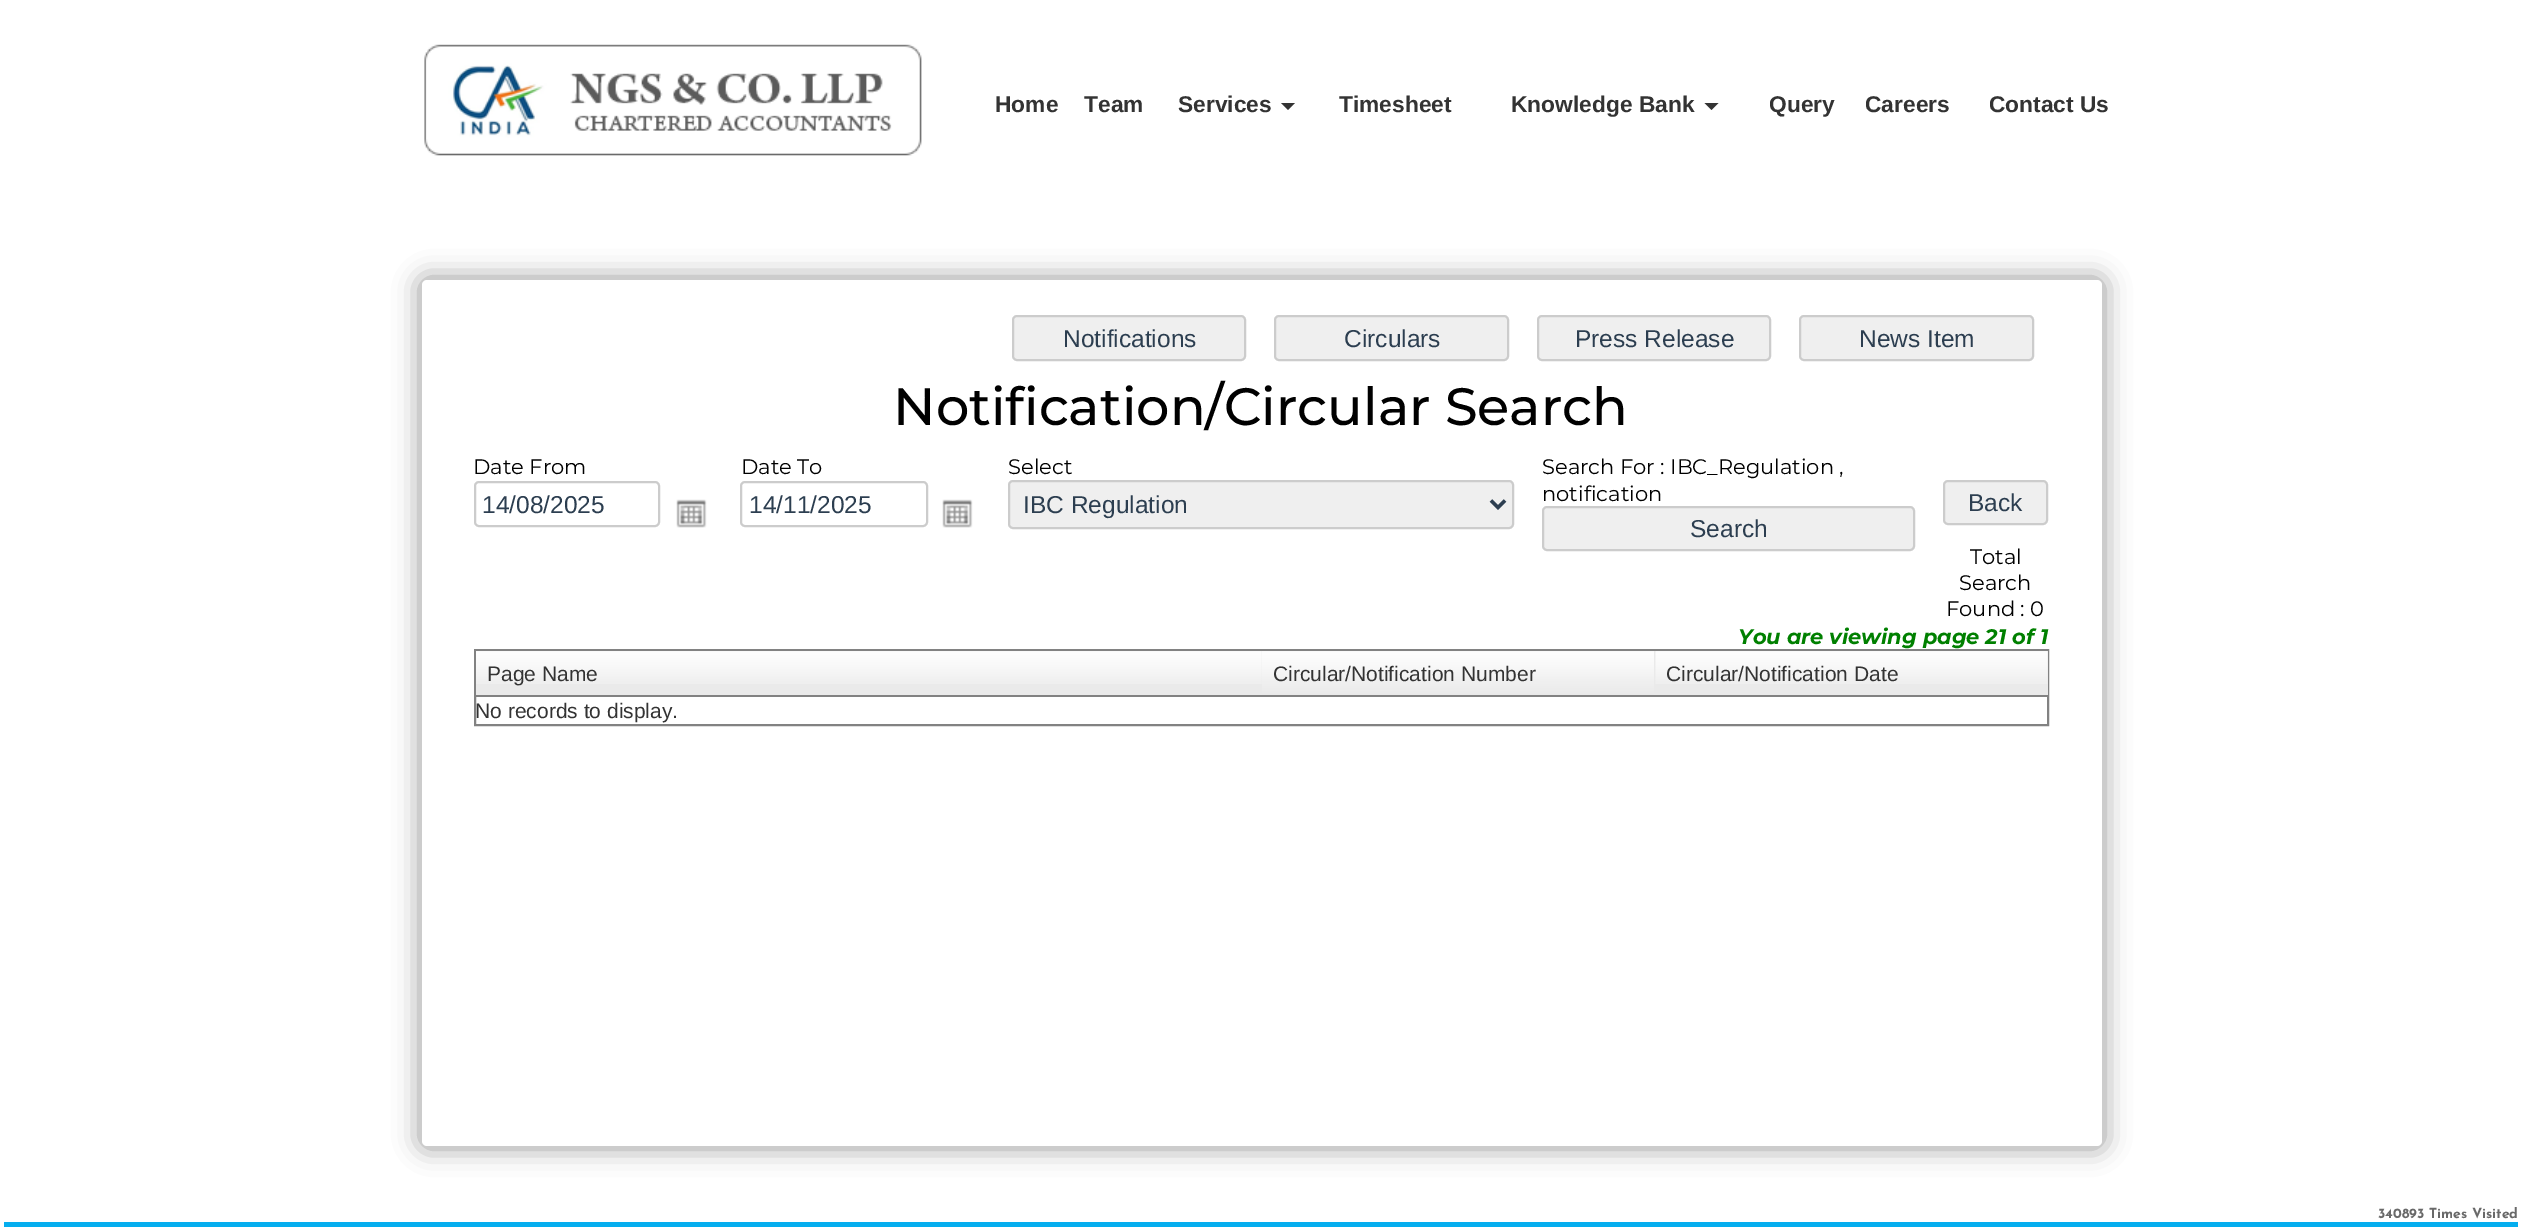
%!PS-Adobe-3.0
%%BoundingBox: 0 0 2521 1227
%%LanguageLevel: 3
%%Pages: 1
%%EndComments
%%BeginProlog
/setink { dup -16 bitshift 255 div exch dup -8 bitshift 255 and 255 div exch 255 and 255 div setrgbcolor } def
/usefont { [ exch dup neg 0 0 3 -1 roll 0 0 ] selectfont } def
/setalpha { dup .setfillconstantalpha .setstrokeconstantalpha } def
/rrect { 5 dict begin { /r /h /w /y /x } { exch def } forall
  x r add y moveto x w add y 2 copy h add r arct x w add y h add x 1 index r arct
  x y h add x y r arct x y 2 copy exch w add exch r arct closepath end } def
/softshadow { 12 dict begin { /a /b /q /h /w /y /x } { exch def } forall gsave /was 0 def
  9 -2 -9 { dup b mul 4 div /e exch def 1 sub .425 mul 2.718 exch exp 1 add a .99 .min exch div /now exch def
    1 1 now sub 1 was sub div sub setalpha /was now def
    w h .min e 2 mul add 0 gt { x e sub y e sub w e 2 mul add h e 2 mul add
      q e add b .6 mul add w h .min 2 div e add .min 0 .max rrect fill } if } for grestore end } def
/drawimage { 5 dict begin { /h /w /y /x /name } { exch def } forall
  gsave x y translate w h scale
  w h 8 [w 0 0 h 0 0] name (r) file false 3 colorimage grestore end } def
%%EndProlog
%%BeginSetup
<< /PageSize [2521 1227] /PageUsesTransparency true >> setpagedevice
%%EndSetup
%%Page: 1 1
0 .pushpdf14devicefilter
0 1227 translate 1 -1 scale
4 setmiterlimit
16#FFFFFF setink
0 0 2521 1227 rectfill
(img1.raw) 424 44 498 112 drawimage
/LiberationSans-Bold 22.75 usefont
16#333333 setink
[
    [(Home) 995 112]
    [(Team) 1084 112]
    [(Services) 1178 112]
] { aload pop moveto show } forall
1281 103 moveto 1295 103 lineto 1288 110 lineto closepath fill
1339 112 moveto (Timesheet) show
1511 112 moveto (Knowledge Bank) show
1704.5 103 moveto 1718.5 103 lineto 1711.5 110 lineto closepath fill
[
    [(Query) 1769 112]
    [(Careers) 1865 112]
    [(Contact Us) 1989 112]
] { aload pop moveto show } forall
16#000000 setink
420 278 1684 870 7 13 0.4 softshadow
16#FFFFFF setink
422 280 1680 866 5 rrect fill
16#EFEFEF setink
1013 316 232 44 4 rrect gsave fill grestore
16#CCCCCC setink
2 setlinewidth
stroke
/LiberationSans-Regular 24.5 usefont
16#2C3E50 setink
1063 347 moveto (Notifications) show
16#EFEFEF setink
1275 316 233 44 4 rrect gsave fill grestore
16#CCCCCC setink
stroke
16#2C3E50 setink
1344 347 moveto (Circulars) show
16#EFEFEF setink
1538 316 232 44 4 rrect gsave fill grestore
16#CCCCCC setink
stroke
16#2C3E50 setink
1575 347 moveto (Press Release) show
16#EFEFEF setink
1800 316 233 44 4 rrect gsave fill grestore
16#CCCCCC setink
stroke
16#2C3E50 setink
1859 347 moveto (News Item) show
/Montserrat-Medium 52.5 usefont
16#000000 setink
893 425 moveto (Notification/Circular Search) show
/Montserrat-Regular 21 usefont
473 474 moveto (Date From) show
16#CCCCCC setink
475 482 184 44 4 rrect stroke
/LiberationSans-Regular 24.5 usefont
16#2C3E50 setink
482 513 moveto (14/08/2025) show
(img2.raw) 676 499 31 29 drawimage
/Montserrat-Regular 21 usefont
16#000000 setink
741 474 moveto (Date To) show
16#CCCCCC setink
741 482 186 44 4 rrect stroke
/LiberationSans-Regular 24.5 usefont
16#2C3E50 setink
749 513 moveto (14/11/2025) show
(img2.raw) 942 499 31 29 drawimage
/Montserrat-Regular 21 usefont
16#000000 setink
1008 474 moveto (Select) show
16#EFEFEF setink
1009 481 504 47 4 rrect gsave fill grestore
16#CCCCCC setink
stroke
16#2C3E50 setink
3.5 setlinewidth
1491 500.5 moveto 1498 507.5 lineto 1505 500.5 lineto stroke
/LiberationSans-Regular 24.5 usefont
1023 513 moveto (IBC Regulation) show
/Montserrat-Regular 21 usefont
16#000000 setink
1542 474 moveto (Search For : IBC_Regulation ,) show
1542 501 moveto (notification) show
16#EFEFEF setink
1543 507 371 43 4 rrect gsave fill grestore
16#CCCCCC setink
2 setlinewidth
stroke
/LiberationSans-Regular 24.5 usefont
16#2C3E50 setink
1690 537 moveto (Search) show
16#EFEFEF setink
1944 481 103 43 4 rrect gsave fill grestore
16#CCCCCC setink
stroke
16#2C3E50 setink
1968 511 moveto (Back) show
/Montserrat-Regular 21 usefont
16#000000 setink
[
    [(Total) 1970 564]
    [(Search) 1959 590]
    [(Found : 0) 1946 616]
] { aload pop moveto show } forall
/Montserrat-BoldItalic 21 usefont
16#008000 setink
1738 644 moveto (You are viewing page 21 of 1) show
16#828282 setink
475 650 1573 75 rectstroke
16#EAEAEA setink
476 651 1572 44 rectfill
(img3.raw) 476 651 786 33 drawimage
16#828282 setink
476 695 1572 2 rectfill
/LiberationSans-Regular 21 usefont
16#333333 setink
487 681 moveto (Page Name) show
(img4.raw) 1262 651 392 44 drawimage
1273 681 moveto (Circular/Notification Number) show
(img5.raw) 1655 651 393 33 drawimage
1666 681 moveto (Circular/Notification Date) show
475 718 moveto (No records to display.) show
/JosefinSans-Bold 14 usefont
16#696969 setink
2378 1218 moveto (340893 Times Visited) show
16#05AEEF setink
4 1222 2514 5 rectfill
.poppdf14devicefilter showpage
%%EOF
